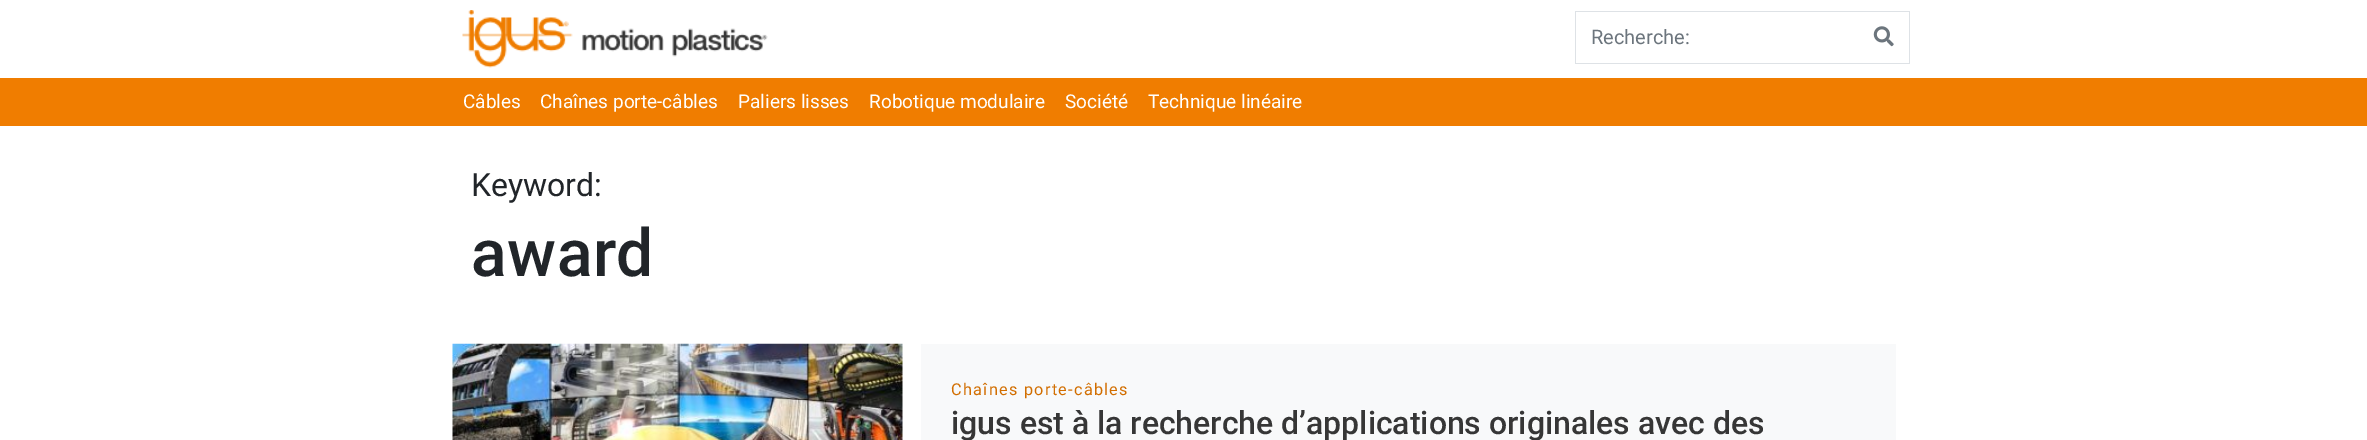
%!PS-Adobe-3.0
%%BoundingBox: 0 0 2367 440
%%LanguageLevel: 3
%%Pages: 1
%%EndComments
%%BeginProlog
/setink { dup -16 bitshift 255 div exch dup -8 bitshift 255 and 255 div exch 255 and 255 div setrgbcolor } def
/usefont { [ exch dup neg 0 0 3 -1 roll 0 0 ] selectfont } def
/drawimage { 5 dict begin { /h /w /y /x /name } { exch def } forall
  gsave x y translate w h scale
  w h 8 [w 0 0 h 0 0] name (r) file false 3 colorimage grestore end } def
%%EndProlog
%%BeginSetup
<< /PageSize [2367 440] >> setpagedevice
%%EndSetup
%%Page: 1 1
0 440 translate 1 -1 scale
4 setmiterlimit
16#FFFFFF setink
0 0 2367 440 rectfill
(img1.raw) 462 10 306 58 drawimage
[
    [1575 11 335 1 16#DEE2E6]
    [1575 63 285 1 16#DEE2E6]
    [1575 11 1 53 16#DEE2E6]
] { aload pop setink rectfill } forall
/Roboto-Regular 20 usefont
16#6C757D setink
1591 44 moveto (Recherche:) show
16#DEE2E6 setink
1909 11 1 53 rectfill
1859 63 51 1 rectfill
(img2.raw) 1873 26 21 21 drawimage
16#F07D00 setink
0 78 2367 48 rectfill
/Roboto-Regular 19 usefont
16#FFFFFF setink
[
    [(Câbles) 463 108]
    [(Chaînes porte-câbles) 540 108]
    [(Paliers lisses) 738 108]
    [(Robotique modulaire) 869 108]
    [(Société) 1065 108]
    [(Technique linéaire) 1148 108]
] { aload pop moveto show } forall
/Roboto-Regular 32 usefont
16#212529 setink
471 196 moveto (Keyword:) show
/Roboto-Medium 66 usefont
471 276 moveto 0.5 0 (award) ashow
(img3.raw) 452 343 451 97 drawimage
16#F8F9FA setink
921 344 975 96 rectfill
/Roboto-Regular 16.25 usefont
16#D26E00 setink
951 395 moveto 1.3 0 (Chaînes porte-câbles) ashow
/Roboto-Medium 32 usefont
16#363636 setink
951 434 moveto (igus est à la recherche d’applications originales avec des) show
showpage
%%EOF
